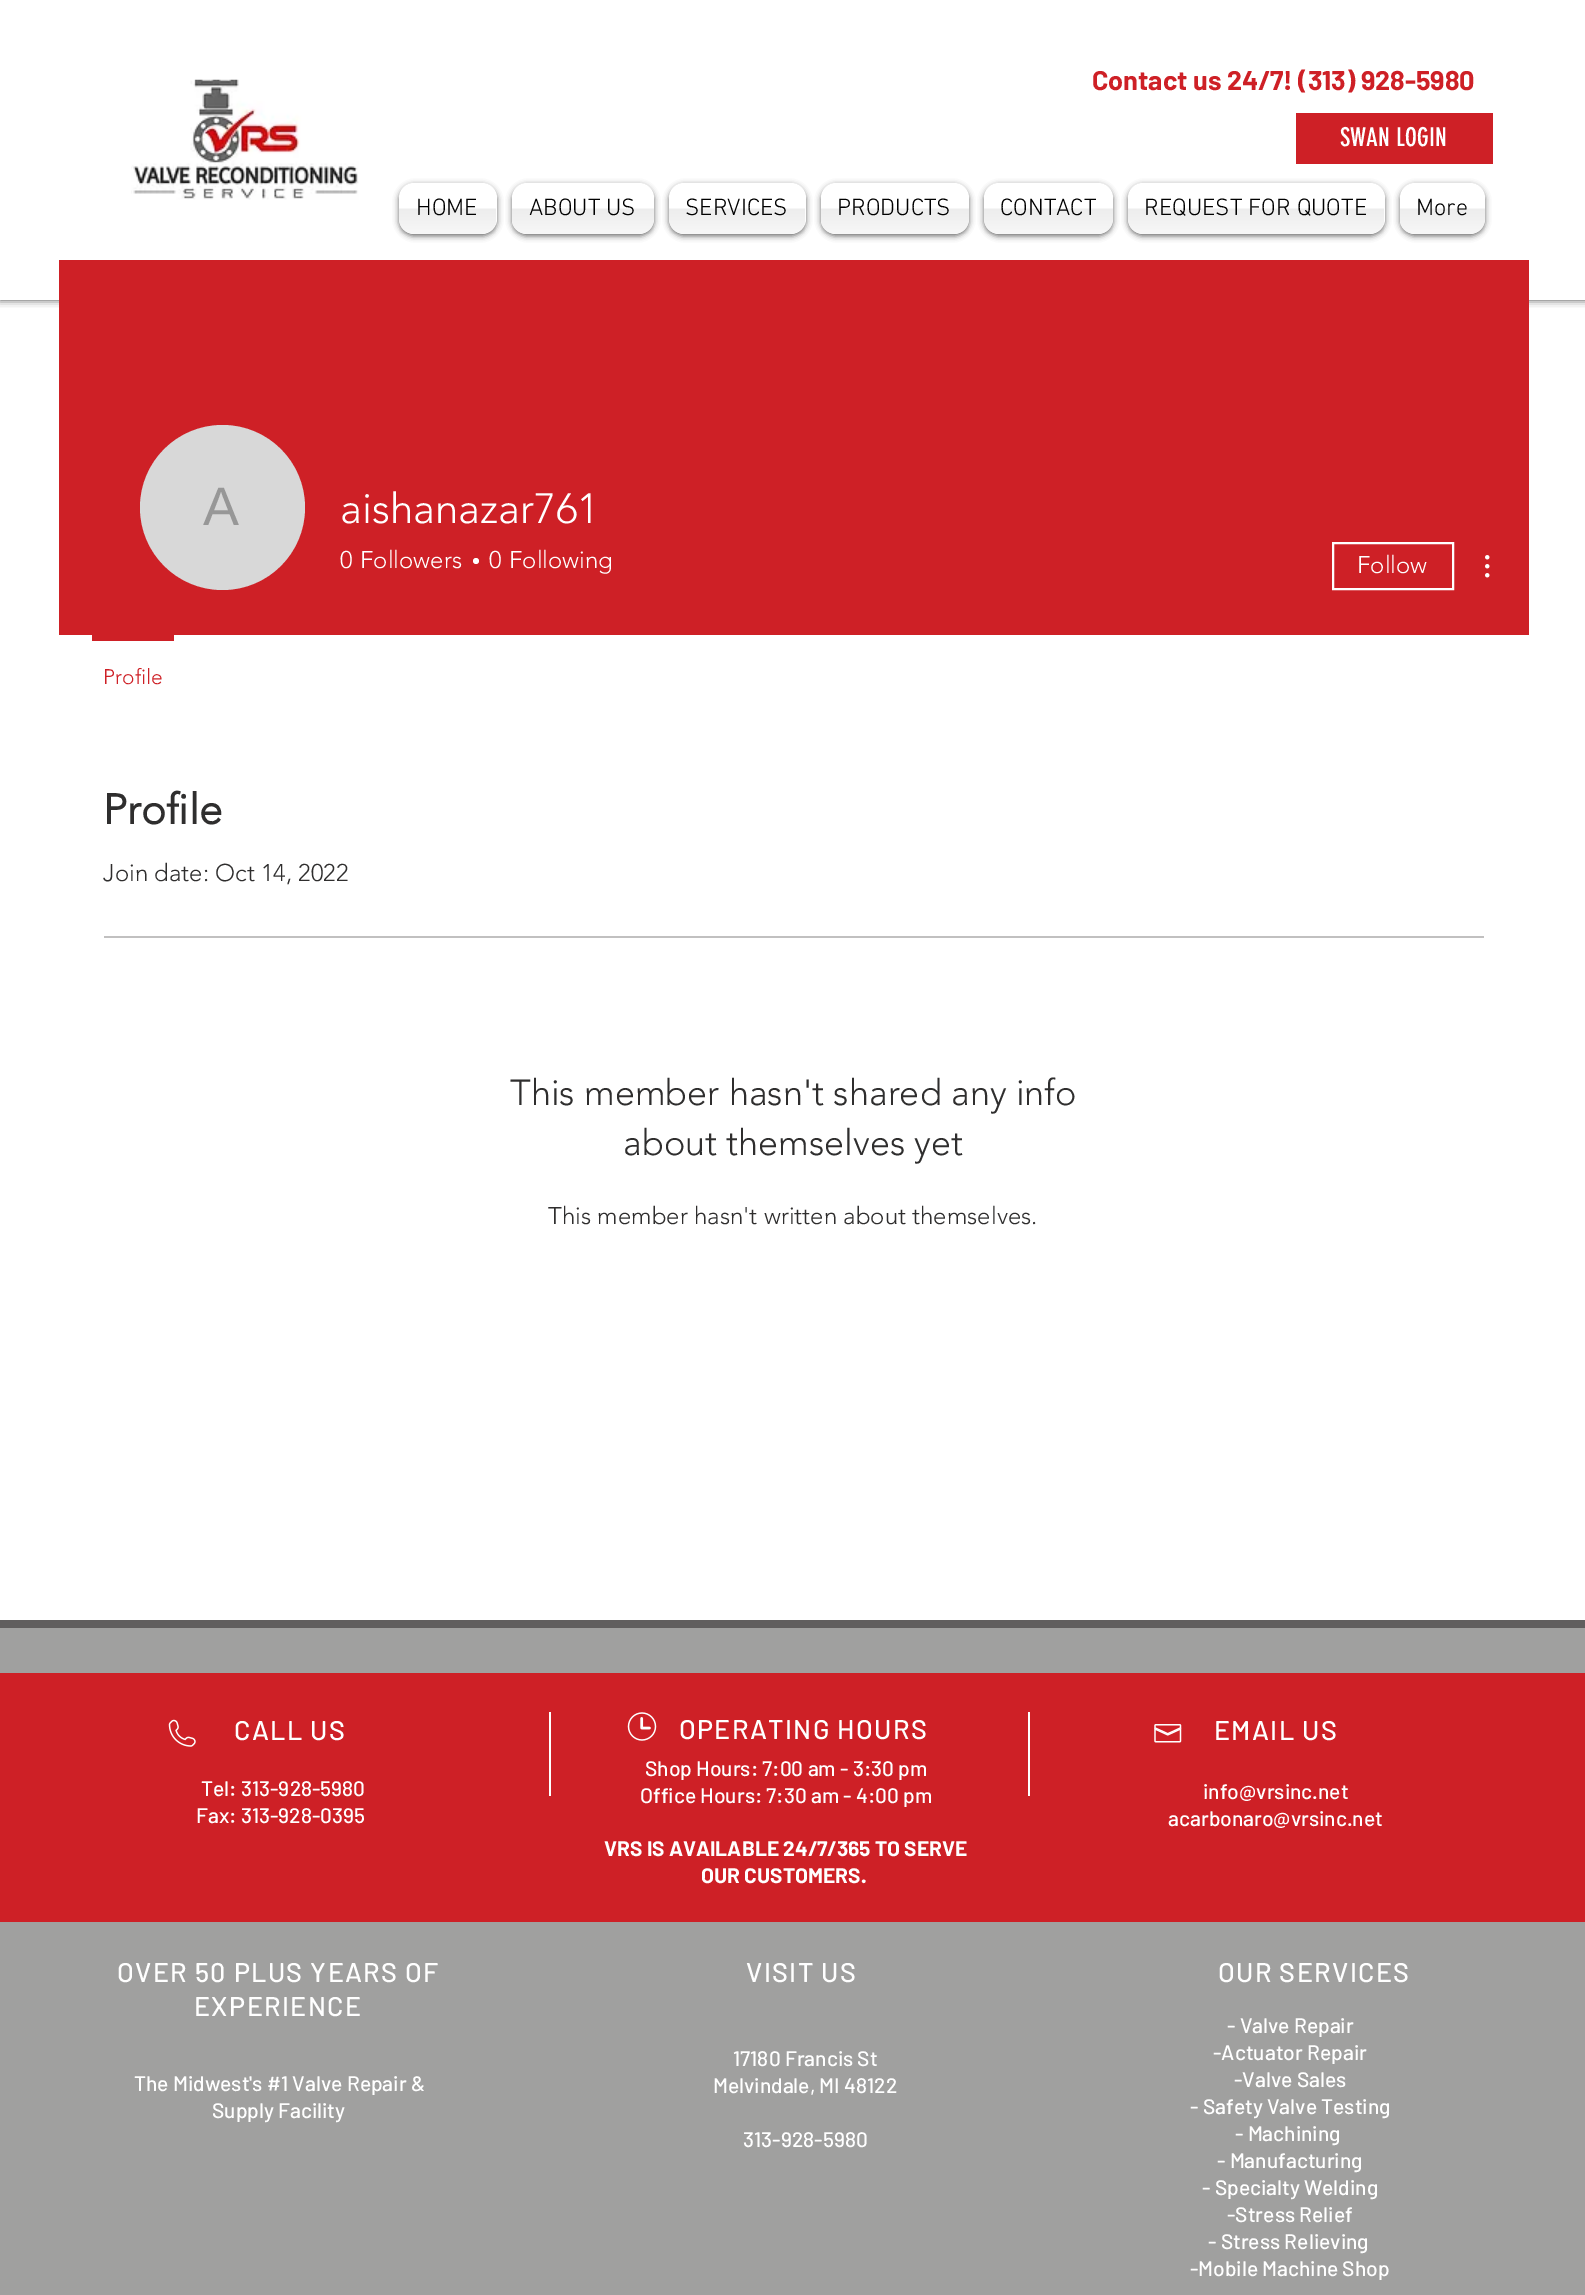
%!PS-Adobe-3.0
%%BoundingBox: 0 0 1585 2295
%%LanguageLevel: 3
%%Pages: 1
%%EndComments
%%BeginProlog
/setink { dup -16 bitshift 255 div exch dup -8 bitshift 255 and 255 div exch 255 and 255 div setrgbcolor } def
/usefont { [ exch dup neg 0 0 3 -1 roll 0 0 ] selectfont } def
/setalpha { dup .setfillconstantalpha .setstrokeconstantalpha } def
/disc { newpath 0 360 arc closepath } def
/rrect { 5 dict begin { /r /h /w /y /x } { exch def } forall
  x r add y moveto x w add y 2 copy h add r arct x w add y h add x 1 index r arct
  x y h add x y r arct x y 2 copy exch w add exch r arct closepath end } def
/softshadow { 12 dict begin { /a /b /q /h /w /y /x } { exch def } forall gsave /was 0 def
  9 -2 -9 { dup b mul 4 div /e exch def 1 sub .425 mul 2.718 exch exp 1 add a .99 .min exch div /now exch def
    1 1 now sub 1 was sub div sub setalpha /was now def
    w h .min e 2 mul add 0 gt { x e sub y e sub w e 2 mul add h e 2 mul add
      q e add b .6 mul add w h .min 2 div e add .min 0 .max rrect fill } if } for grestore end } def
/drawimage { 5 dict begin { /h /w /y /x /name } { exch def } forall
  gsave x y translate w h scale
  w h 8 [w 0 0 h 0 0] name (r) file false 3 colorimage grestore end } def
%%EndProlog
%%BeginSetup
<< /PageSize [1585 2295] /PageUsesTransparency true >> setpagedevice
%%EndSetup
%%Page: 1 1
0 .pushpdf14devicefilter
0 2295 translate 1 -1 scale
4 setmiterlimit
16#FFFFFF setink
0 0 1585 2295 rectfill
gsave
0 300 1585 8 rectclip
16#000000 setink
0 0 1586 300 0 4 0.7 softshadow
grestore
(img1.raw) 131 79 228 121 drawimage
/Barlow-Bold 27 usefont
16#CE2026 setink
1092 90 moveto (Contact us 24/7! \(313\) 928-5980) show
1296 113 197 51 rectfill
/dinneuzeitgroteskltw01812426-Regular 25.5 usefont
16#FFFFFF setink
1340 146 moveto (SWAN LOGIN) show
16#000000 setink
399 185 98 51 15 3 0.6 softshadow
16#FFFFFF setink
399 183 98 51 15 rrect fill
(img2.raw) 399 208 97 26 drawimage
/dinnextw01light-Light 24 usefont
16#000000 setink
416 215 moveto (HOME) show
512 185 142 51 15 3 0.6 softshadow
16#FFFFFF setink
512 183 142 51 15 rrect fill
(img3.raw) 512 208 142 26 drawimage
16#000000 setink
529 215 moveto (ABOUT US) show
669 185 137 51 15 3 0.6 softshadow
16#FFFFFF setink
669 183 137 51 15 rrect fill
(img4.raw) 669 208 136 26 drawimage
16#000000 setink
685 215 moveto (SERVICES) show
821 185 148 51 15 3 0.6 softshadow
16#FFFFFF setink
821 183 148 51 15 rrect fill
(img5.raw) 821 208 148 26 drawimage
16#000000 setink
837 215 moveto (PRODUCTS) show
984 185 129 51 15 3 0.6 softshadow
16#FFFFFF setink
984 183 129 51 15 rrect fill
(img6.raw) 984 208 129 26 drawimage
16#000000 setink
1000 215 moveto (CONTACT) show
1128 185 257 51 15 3 0.6 softshadow
16#FFFFFF setink
1128 183 257 51 15 rrect fill
(img7.raw) 1128 208 256 26 drawimage
16#000000 setink
1144 215 moveto (REQUEST FOR QUOTE) show
1400 185 85 51 15 3 0.6 softshadow
16#FFFFFF setink
1400 183 85 51 15 rrect fill
(img8.raw) 1400 208 85 26 drawimage
16#000000 setink
1416 215 moveto (More) show
16#CE2026 setink
59 260 1470 375 rectfill
16#D8D8D8 setink
222.5 507.5 82.5 disc fill
/LiberationSans-Regular 54 usefont
16#979797 setink
203 525 moveto (A) show
/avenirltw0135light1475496-Light 42 usefont
16#FFFFFF setink
340 523 moveto (aishanazar761) show
/avenirltw0135light1475496-Light 24 usefont
340 568 moveto (0) show
360 568 moveto (Followers) show
476 561 3 disc fill
489 568 moveto (0) show
509 568 moveto (Following) show
2 setlinewidth
1333 543 120 46 rectstroke
1357 573 moveto (Follow) show
(img9.raw) 1485 555 5 23 drawimage
16#CE2026 setink
92 635 82 6 rectfill
/avenirltw0135light1475496-Light 21 usefont
103 684 moveto (Profile) show
/avenirltw0135light1475496-Bold 42 usefont
16#2F2E2E setink
103 824 moveto (Profile) show
/avenirltw0135light1475496-Light 24 usefont
103 881 moveto (Join date: Oct 14, 2022) show
16#C1C0C0 setink
104 936 1380 2 rectfill
/avenirltw0135light1475496-Light 36 usefont
16#2F2E2E setink
510 1105 moveto (This member hasn't shared any info) show
623 1155 moveto (about themselves yet) show
/avenirltw0135light1475496-Light 24 usefont
548 1224 moveto (This member hasn't written about themselves.) show
[
    [0 1628 1585 667 16#A0A09F]
    [0 1620 1585 8 16#605E5E]
    [0 1673 1585 249 16#CE2026]
] { aload pop setink rectfill } forall
(img10.raw) 168 1719 28 28 drawimage
/Barlow-Medium 27 usefont
16#FFFFFF setink
234 1740 moveto 1.35 0 (CALL US) ashow
549 1712 2 84 rectfill
(img11.raw) 627 1712 30 29 drawimage
679 1739 moveto 1.35 0 (OPERATING HOURS) ashow
1028 1712 2 84 rectfill
(img12.raw) 1154 1724 28 19 drawimage
1214 1740 moveto 1.35 0 (EMAIL US) ashow
/Barlow-Medium 21 usefont
[
    [(Tel: 313-928-5980) 201 1796]
    [(Fax: 313-928-0395) 196 1823]
    [(Shop Hours: 7:00 am - 3:30 pm) 645 1776]
    [(Office Hours: 7:30 am - 4:00 pm) 640 1803]
] { aload pop moveto show } forall
/Barlow-Bold 21 usefont
604 1856 moveto (VRS IS AVAILABLE 24/7/365 TO SERVE) show
701 1883 moveto (OUR CUSTOMERS.) show
/Barlow-Medium 21 usefont
1203 1799 moveto (info@vrsinc.net) show
1168 1826 moveto (acarbonaro@vrsinc.net) show
/Barlow-Medium 27 usefont
117 1982 moveto 1.35 0 (OVER 50 PLUS YEARS OF) ashow
194 2016 moveto 1.35 0 (EXPERIENCE) ashow
746 1982 moveto 1.35 0 (VISIT US) ashow
1218 1982 moveto 1.35 0 (OUR SERVICES) ashow
/Barlow-Medium 21 usefont
[
    [(The Midwest's #1 Valve Repair &) 134 2091]
    [(Supply Facility) 212 2118]
    [(17180 Francis St) 733 2066]
    [(Melvindale, MI 48122) 713 2093]
    [(313-928-5980) 743 2147]
    [(- Valve Repair) 1227 2033]
    [(-Actuator Repair) 1213 2060]
    [(-Valve Sales) 1234 2087]
    [(- Safety Valve Testing) 1190 2114]
    [(- Machining) 1235 2141]
    [(- Manufacturing) 1217 2168]
    [(- Specialty Welding) 1202 2195]
    [(-Stress Relief) 1227 2222]
    [(- Stress Relieving) 1208 2249]
    [(-Mobile Machine Shop) 1190 2276]
] { aload pop moveto show } forall
.poppdf14devicefilter showpage
%%EOF
